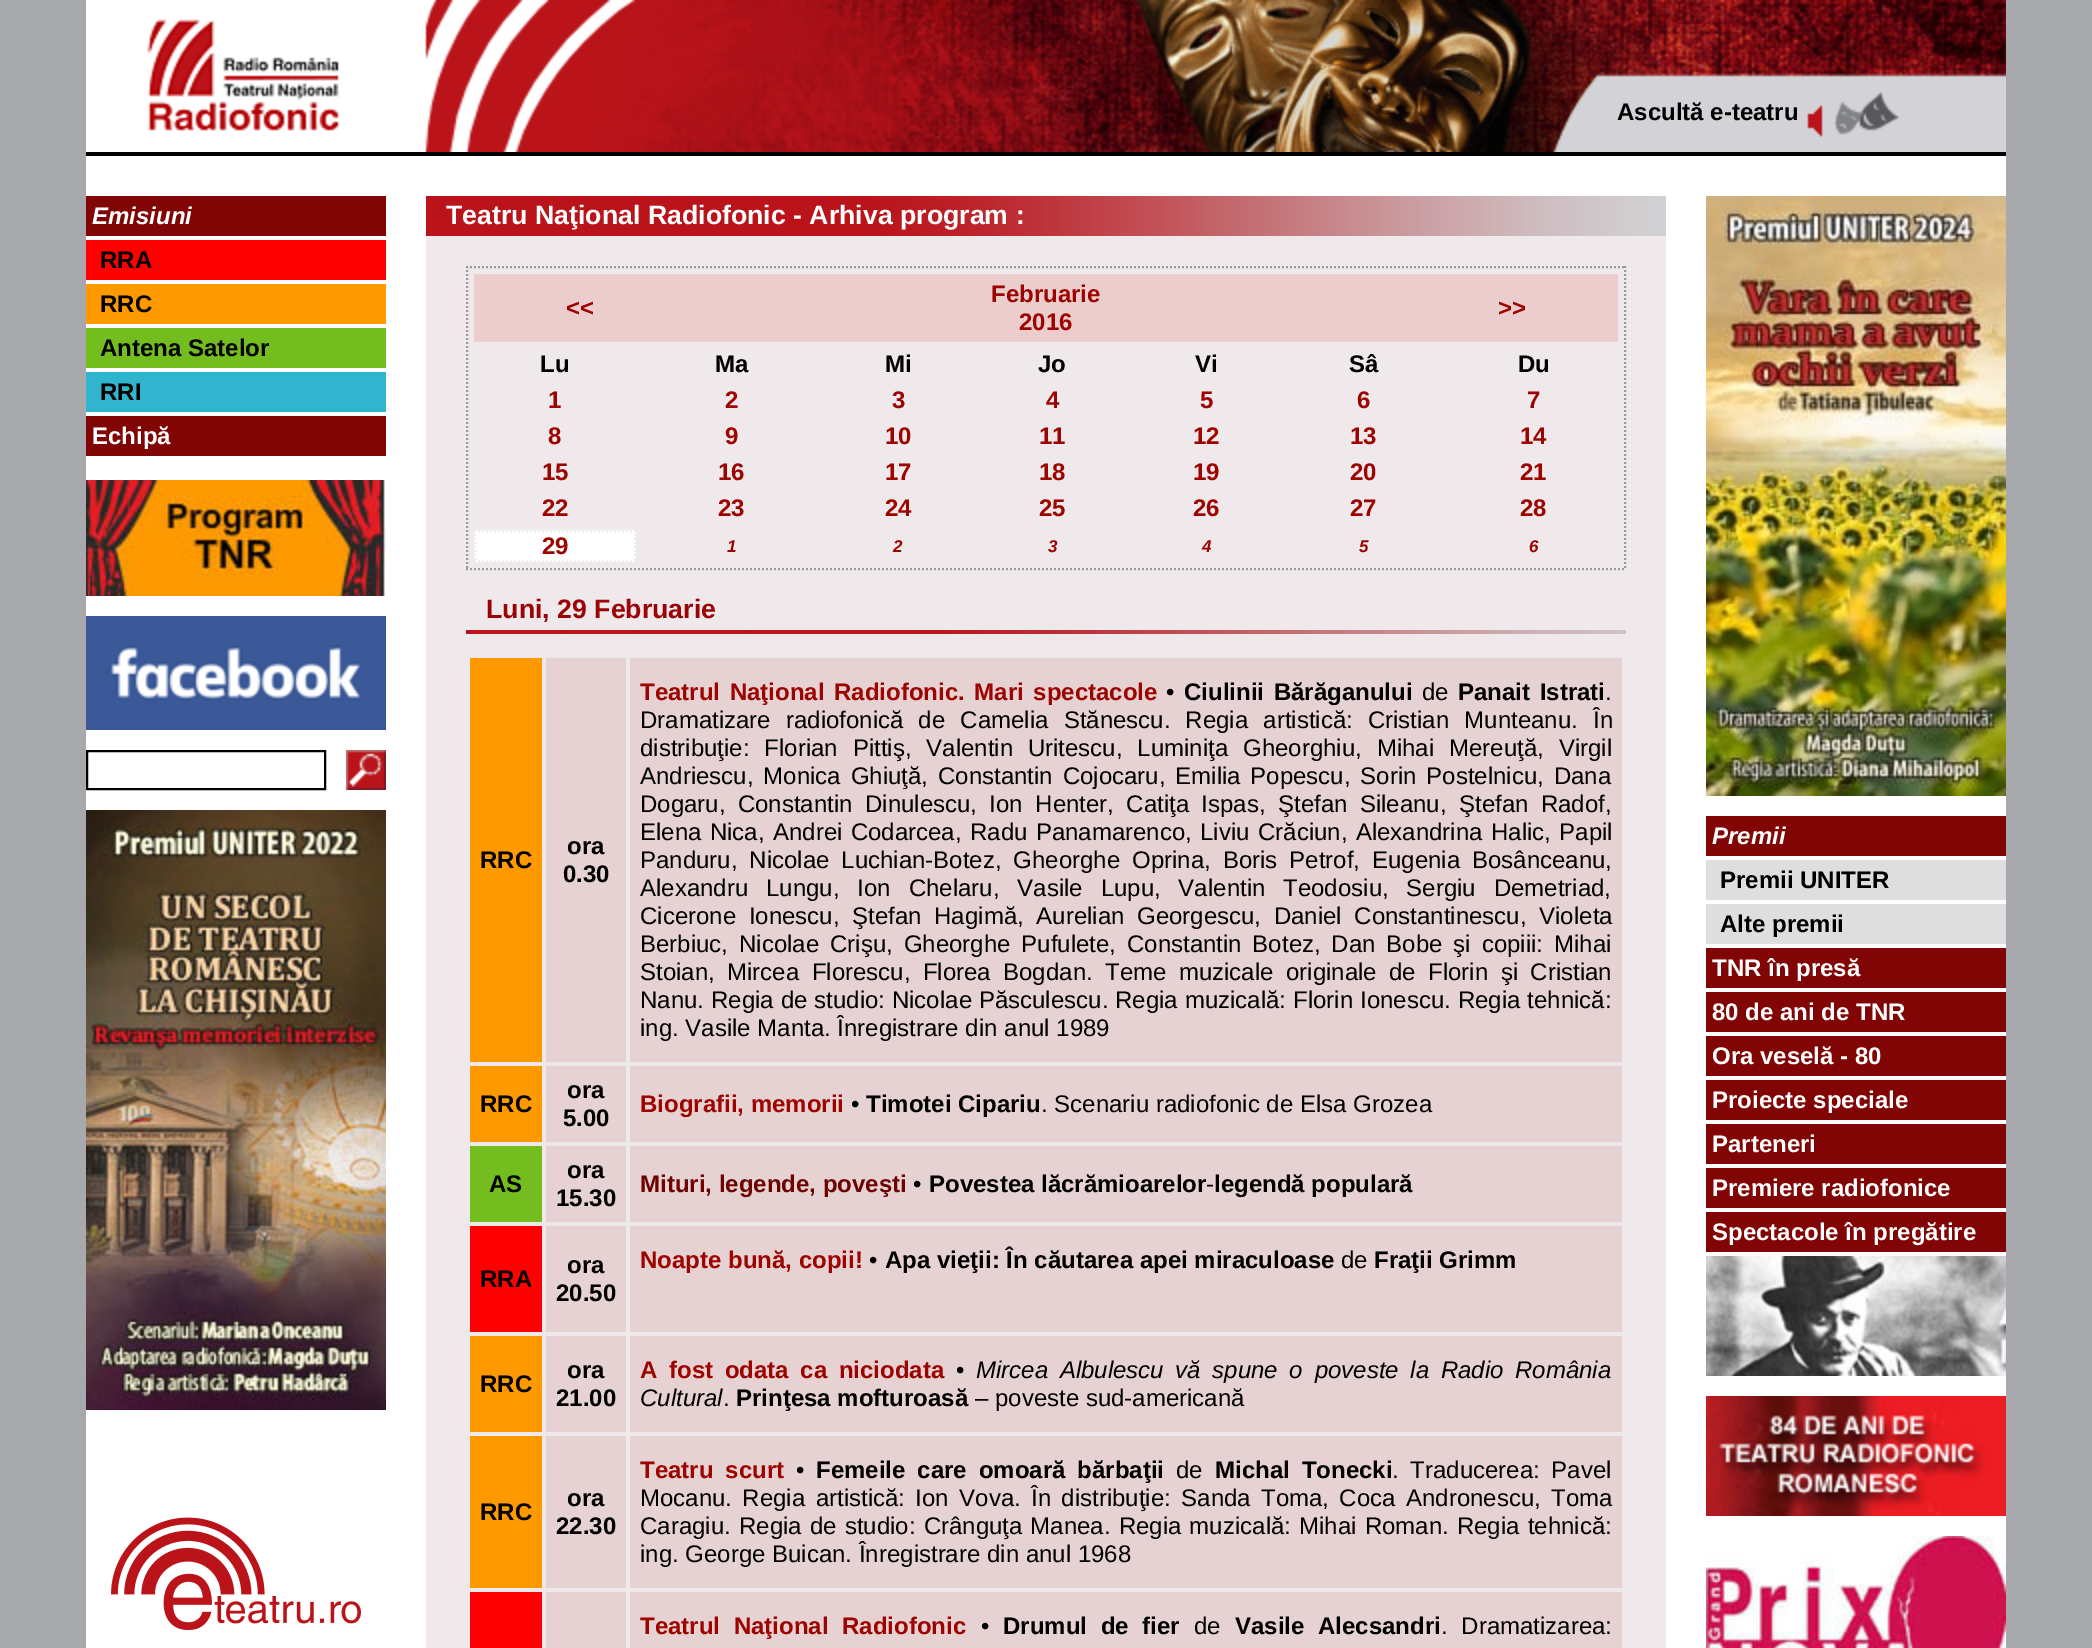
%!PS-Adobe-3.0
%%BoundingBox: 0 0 2092 1648
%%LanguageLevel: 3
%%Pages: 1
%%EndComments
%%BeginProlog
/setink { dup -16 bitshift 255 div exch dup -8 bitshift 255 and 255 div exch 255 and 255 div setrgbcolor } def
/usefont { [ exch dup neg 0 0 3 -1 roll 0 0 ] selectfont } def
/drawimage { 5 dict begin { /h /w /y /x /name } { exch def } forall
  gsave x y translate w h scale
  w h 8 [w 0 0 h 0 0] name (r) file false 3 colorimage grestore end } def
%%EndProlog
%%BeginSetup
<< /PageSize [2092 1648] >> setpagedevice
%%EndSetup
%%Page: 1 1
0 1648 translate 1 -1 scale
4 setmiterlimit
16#A7A9AC setink
0 0 2092 1648 rectfill
16#FFFFFF setink
86 0 339 152 rectfill
16#000000 setink
86 152 1920 4 rectfill
(img1.raw) 147 19 192 112 drawimage
(img2.raw) 425 0 211 152 drawimage
(img3.raw) 636 0 430 152 drawimage
(img4.raw) 1066 0 940 152 drawimage
/LiberationSans-Bold 24 usefont
1617 120 moveto (Ascultă e-teatru) show
(img5.raw) 1807 91 93 46 drawimage
16#FFFFFF setink
86 156 1920 1492 rectfill
16#810505 setink
86 196 300 40 rectfill
/LiberationSans-BoldItalic 24 usefont
16#FFFFFF setink
92 224 moveto (Emisiuni) show
16#FF0000 setink
86 240 300 40 rectfill
/LiberationSans-Bold 24 usefont
16#000000 setink
100 268 moveto (RRA) show
16#FF9900 setink
86 284 300 40 rectfill
16#000000 setink
100 312 moveto (RRC) show
16#73BE1E setink
86 328 300 40 rectfill
16#000000 setink
100 356 moveto (Antena Satelor) show
16#31B5CE setink
86 372 300 40 rectfill
16#000000 setink
100 400 moveto (RRI) show
16#810505 setink
86 416 300 40 rectfill
16#FFFFFF setink
92 444 moveto (Echipă) show
(img6.raw) 86 480 300 116 drawimage
(img7.raw) 86 616 300 114 drawimage
16#000000 setink
2 setlinewidth
87 751 238 38 rectstroke
(img8.raw) 346 750 40 40 drawimage
(img9.raw) 86 810 300 600 drawimage
(img10.raw) 111 1517 250 113 drawimage
(img11.raw) 426 196 1240 40 drawimage
/LiberationSans-Bold 26.7 usefont
16#FFFFFF setink
446 224 moveto (Teatru Naţional Radiofonic - Arhiva program :) show
16#EFE9EB setink
426 236 1240 1412 rectfill
16#999999 setink
[2 2] 0 setdash
466 267 moveto 1626 267 lineto stroke
1625 266 moveto 1625 570 lineto stroke
466 569 moveto 1626 569 lineto stroke
467 266 moveto 467 570 lineto stroke
16#EBCDCD setink
474 274 1144 68 rectfill
/LiberationSans-Bold 24 usefont
16#9D0400 setink
[
    [(<<) 566 316]
    [(Februarie) 991 302]
    [(2016) 1019 330]
    [(>>) 1498 316]
] { aload pop moveto show } forall
16#000000 setink
[
    [(Lu) 540 372]
    [(Ma) 715 372]
    [(Mi) 885 372]
    [(Jo) 1038 372]
    [(Vi) 1195 372]
    [(Sâ) 1349 372]
    [(Du) 1518 372]
] { aload pop moveto show } forall
16#9D0400 setink
[
    [(1) 548 408]
    [(2) 725 408]
    [(3) 892 408]
    [(4) 1046 408]
    [(5) 1200 408]
    [(6) 1357 408]
    [(7) 1527 408]
    [(8) 548 444]
    [(9) 725 444]
    [(10) 885 444]
    [(11) 1039 444]
    [(12) 1193 444]
    [(13) 1350 444]
    [(14) 1520 444]
    [(15) 542 480]
    [(16) 718 480]
    [(17) 885 480]
    [(18) 1039 480]
    [(19) 1193 480]
    [(20) 1350 480]
    [(21) 1520 480]
    [(22) 542 516]
    [(23) 718 516]
    [(24) 885 516]
    [(25) 1039 516]
    [(26) 1193 516]
    [(27) 1350 516]
    [(28) 1520 516]
] { aload pop moveto show } forall
16#FFFFFF setink
474 530 162 32 rectfill
16#EEEEEE setink
474 531 moveto 636 531 lineto stroke
635 530 moveto 635 562 lineto stroke
474 561 moveto 636 561 lineto stroke
475 530 moveto 475 562 lineto stroke
16#9D0400 setink
542 554 moveto (29) show
/LiberationSans-BoldItalic 17 usefont
[
    [(1) 727 552]
    [(2) 893 552]
    [(3) 1048 552]
    [(4) 1202 552]
    [(5) 1359 552]
    [(6) 1529 552]
] { aload pop moveto show } forall
(img12.raw) 466 630 1160 4 drawimage
/LiberationSans-Bold 26.7 usefont
16#9C0306 setink
486 618 moveto (Luni, 29 Februarie) show
16#FF9900 setink
470 658 72 404 rectfill
/LiberationSans-Bold 24 usefont
16#000000 setink
480 868 moveto (RRC) show
16#E6D2D3 setink
546 658 80 404 rectfill
16#000000 setink
567 854 moveto (ora) show
563 882 moveto (0.30) show
16#E6D2D3 setink
630 658 992 404 rectfill
16#9D0400 setink
640 700 moveto 3 0 32 (Teatrul Naţional Radiofonic. Mari spectacole) widthshow
/LiberationSans-Regular 24 usefont
16#000000 setink
1166 700 moveto (•) show
/LiberationSans-Bold 24 usefont
1184 700 moveto 3 0 32 (Ciulinii Bărăganului) widthshow
/LiberationSans-Regular 24 usefont
1422 700 moveto (de) show
/LiberationSans-Bold 24 usefont
1458 700 moveto 3 0 32 (Panait Istrati) widthshow
/LiberationSans-Regular 24 usefont
1605 700 moveto (.) show
640 728 moveto 8.5 0 32 (Dramatizare radiofonică de Camelia Stănescu. Regia artistică: Cristian Munteanu. În) widthshow
640 756 moveto 8.25 0 32 (distribuţie: Florian Pittiş, Valentin Uritescu, Luminiţa Gheorghiu, Mihai Mereuţă, Virgil) widthshow
640 784 moveto 3.25 0 32 (Andriescu, Monica Ghiuţă, Constantin Cojocaru, Emilia Popescu, Sorin Postelnicu, Dana) widthshow
640 812 moveto 5.75 0 32 (Dogaru, Constantin Dinulescu, Ion Henter, Catiţa Ispas, Ştefan Sileanu, Ştefan Radof,) widthshow
640 840 moveto 1.75 0 32 (Elena Nica, Andrei Codarcea, Radu Panamarenco, Liviu Crăciun, Alexandrina Halic, Papil) widthshow
640 868 moveto 5.25 0 32 (Panduru, Nicolae Luchian-Botez, Gheorghe Oprina, Boris Petrof, Eugenia Bosânceanu,) widthshow
640 896 moveto 11.25 0 32 (Alexandru Lungu, Ion Chelaru, Vasile Lupu, Valentin Teodosiu, Sergiu Demetriad,) widthshow
640 924 moveto 6 0 32 (Cicerone Ionescu, Ştefan Hagimă, Aurelian Georgescu, Daniel Constantinescu, Violeta) widthshow
640 952 moveto 4.25 0 32 (Berbiuc, Nicolae Crişu, Gheorghe Pufulete, Constantin Botez, Dan Bobe şi copiii: Mihai) widthshow
640 980 moveto 5.75 0 32 (Stoian, Mircea Florescu, Florea Bogdan. Teme muzicale originale de Florin şi Cristian) widthshow
640 1008 moveto 0.25 0 32 (Nanu. Regia de studio: Nicolae Păsculescu. Regia muzicală: Florin Ionescu. Regia tehnică:) widthshow
640 1036 moveto (ing. Vasile Manta. Înregistrare din anul 1989) show
16#FF9900 setink
470 1066 72 76 rectfill
/LiberationSans-Bold 24 usefont
16#000000 setink
480 1112 moveto (RRC) show
16#E6D2D3 setink
546 1066 80 76 rectfill
16#000000 setink
567 1098 moveto (ora) show
563 1126 moveto (5.00) show
16#E6D2D3 setink
630 1066 992 76 rectfill
16#9D0400 setink
640 1112 moveto (Biografii, memorii) show
/LiberationSans-Regular 24 usefont
16#000000 setink
851 1112 moveto (•) show
/LiberationSans-Bold 24 usefont
866 1112 moveto (Timotei Cipariu) show
/LiberationSans-Regular 24 usefont
1041 1112 moveto (. Scenariu radiofonic de Elsa Grozea) show
16#73BE1E setink
470 1146 72 76 rectfill
/LiberationSans-Bold 24 usefont
16#000000 setink
489 1192 moveto (AS) show
16#E6D2D3 setink
546 1146 80 76 rectfill
16#000000 setink
567 1178 moveto (ora) show
556 1206 moveto (15.30) show
16#E6D2D3 setink
630 1146 992 76 rectfill
16#6D0300 setink
640 1192 moveto (Mituri, legende, poveşti) show
/LiberationSans-Regular 24 usefont
16#000000 setink
913 1192 moveto (•) show
/LiberationSans-Bold 24 usefont
929 1192 moveto (Povestea lăcrămioarelor) show
/LiberationSans-Regular 24 usefont
1206 1192 moveto (-) show
/LiberationSans-Bold 24 usefont
1214 1192 moveto (legendă populară) show
16#FF0000 setink
470 1226 72 106 rectfill
16#000000 setink
480 1287 moveto (RRA) show
16#E6D2D3 setink
546 1226 80 106 rectfill
16#000000 setink
567 1273 moveto (ora) show
556 1301 moveto (20.50) show
16#E6D2D3 setink
630 1226 992 106 rectfill
16#9D0400 setink
640 1268 moveto (Noapte bună, copii!) show
/LiberationSans-Regular 24 usefont
16#000000 setink
869 1268 moveto (•) show
/LiberationSans-Bold 24 usefont
885 1268 moveto (Apa vieţii: În căutarea apei miraculoase) show
/LiberationSans-Regular 24 usefont
1341 1268 moveto (de) show
/LiberationSans-Bold 24 usefont
1374 1268 moveto (Fraţii Grimm) show
16#FF9900 setink
470 1336 72 96 rectfill
16#000000 setink
480 1392 moveto (RRC) show
16#E6D2D3 setink
546 1336 80 96 rectfill
16#000000 setink
567 1378 moveto (ora) show
556 1406 moveto (21.00) show
16#E6D2D3 setink
630 1336 992 96 rectfill
16#9D0400 setink
640 1378 moveto 5 0 32 (A fost odata ca niciodata) widthshow
/LiberationSans-Regular 24 usefont
16#000000 setink
956 1378 moveto (•) show
/LiberationSans-Italic 24 usefont
976 1378 moveto 5 0 32 (Mircea Albulescu vă spune o poveste la Radio România) widthshow
640 1406 moveto (Cultural) show
/LiberationSans-Regular 24 usefont
723 1406 moveto (.) show
/LiberationSans-Bold 24 usefont
736 1406 moveto (Prinţesa mofturoasă) show
/LiberationSans-Regular 24 usefont
975 1406 moveto (– poveste sud-americană) show
16#FF9900 setink
470 1436 72 152 rectfill
/LiberationSans-Bold 24 usefont
16#000000 setink
480 1520 moveto (RRC) show
16#E6D2D3 setink
546 1436 80 152 rectfill
16#000000 setink
567 1506 moveto (ora) show
556 1534 moveto (22.30) show
16#E6D2D3 setink
630 1436 992 152 rectfill
16#9D0400 setink
640 1478 moveto 5.25 0 32 (Teatru scurt) widthshow
/LiberationSans-Regular 24 usefont
16#000000 setink
796 1478 moveto (•) show
/LiberationSans-Bold 24 usefont
816 1478 moveto 5.25 0 32 (Femeile care omoară bărbaţii) widthshow
/LiberationSans-Regular 24 usefont
1176 1478 moveto (de) show
/LiberationSans-Bold 24 usefont
1215 1478 moveto 5.25 0 32 (Michal Tonecki) widthshow
/LiberationSans-Regular 24 usefont
1392 1478 moveto 5 0 32 (. Traducerea: Pavel) widthshow
640 1506 moveto 3.75 0 32 (Mocanu. Regia artistică: Ion Vova. În distribuţie: Sanda Toma, Coca Andronescu, Toma) widthshow
640 1534 moveto 1.5 0 32 (Caragiu. Regia de studio: Crânguţa Manea. Regia muzicală: Mihai Roman. Regia tehnică:) widthshow
640 1562 moveto (ing. George Buican. Înregistrare din anul 1968) show
[
    [470 1592 72 56 16#FF0000]
    [546 1592 80 56 16#E6D2D3]
    [630 1592 992 56 16#E6D2D3]
] { aload pop setink rectfill } forall
/LiberationSans-Bold 24 usefont
16#9D0400 setink
640 1634 moveto 7 0 32 (Teatrul Naţional Radiofonic) widthshow
/LiberationSans-Regular 24 usefont
16#000000 setink
981 1634 moveto (•) show
/LiberationSans-Bold 24 usefont
1003 1634 moveto 7 0 32 (Drumul de fier) widthshow
/LiberationSans-Regular 24 usefont
1194 1634 moveto (de) show
/LiberationSans-Bold 24 usefont
1235 1634 moveto 7 0 32 (Vasile Alecsandri) widthshow
/LiberationSans-Regular 24 usefont
1441 1634 moveto 7 0 32 (. Dramatizarea:) widthshow
(img13.raw) 1706 196 300 600 drawimage
16#810505 setink
1706 816 300 40 rectfill
/LiberationSans-BoldItalic 24 usefont
16#FFFFFF setink
1712 844 moveto (Premii) show
16#DEDEDE setink
1706 860 300 40 rectfill
/LiberationSans-Bold 24 usefont
16#000000 setink
1720 888 moveto (Premii UNITER) show
16#DEDEDE setink
1706 904 300 40 rectfill
16#000000 setink
1720 932 moveto (Alte premii) show
16#810505 setink
1706 948 300 40 rectfill
16#FFFFFF setink
1712 976 moveto (TNR în presă) show
16#810505 setink
1706 992 300 40 rectfill
16#FFFFFF setink
1712 1020 moveto (80 de ani de TNR) show
16#810505 setink
1706 1036 300 40 rectfill
16#FFFFFF setink
1712 1064 moveto (Ora veselă - 80) show
16#810505 setink
1706 1080 300 40 rectfill
16#FFFFFF setink
1712 1108 moveto (Proiecte speciale) show
16#810505 setink
1706 1124 300 40 rectfill
16#FFFFFF setink
1712 1152 moveto (Parteneri) show
16#810505 setink
1706 1168 300 40 rectfill
16#FFFFFF setink
1712 1196 moveto (Premiere radiofonice) show
16#810505 setink
1706 1212 300 40 rectfill
16#FFFFFF setink
1712 1240 moveto (Spectacole în pregătire) show
(img14.raw) 1706 1256 300 120 drawimage
(img15.raw) 1706 1396 300 120 drawimage
(img16.raw) 1706 1536 300 112 drawimage
showpage
%%EOF
